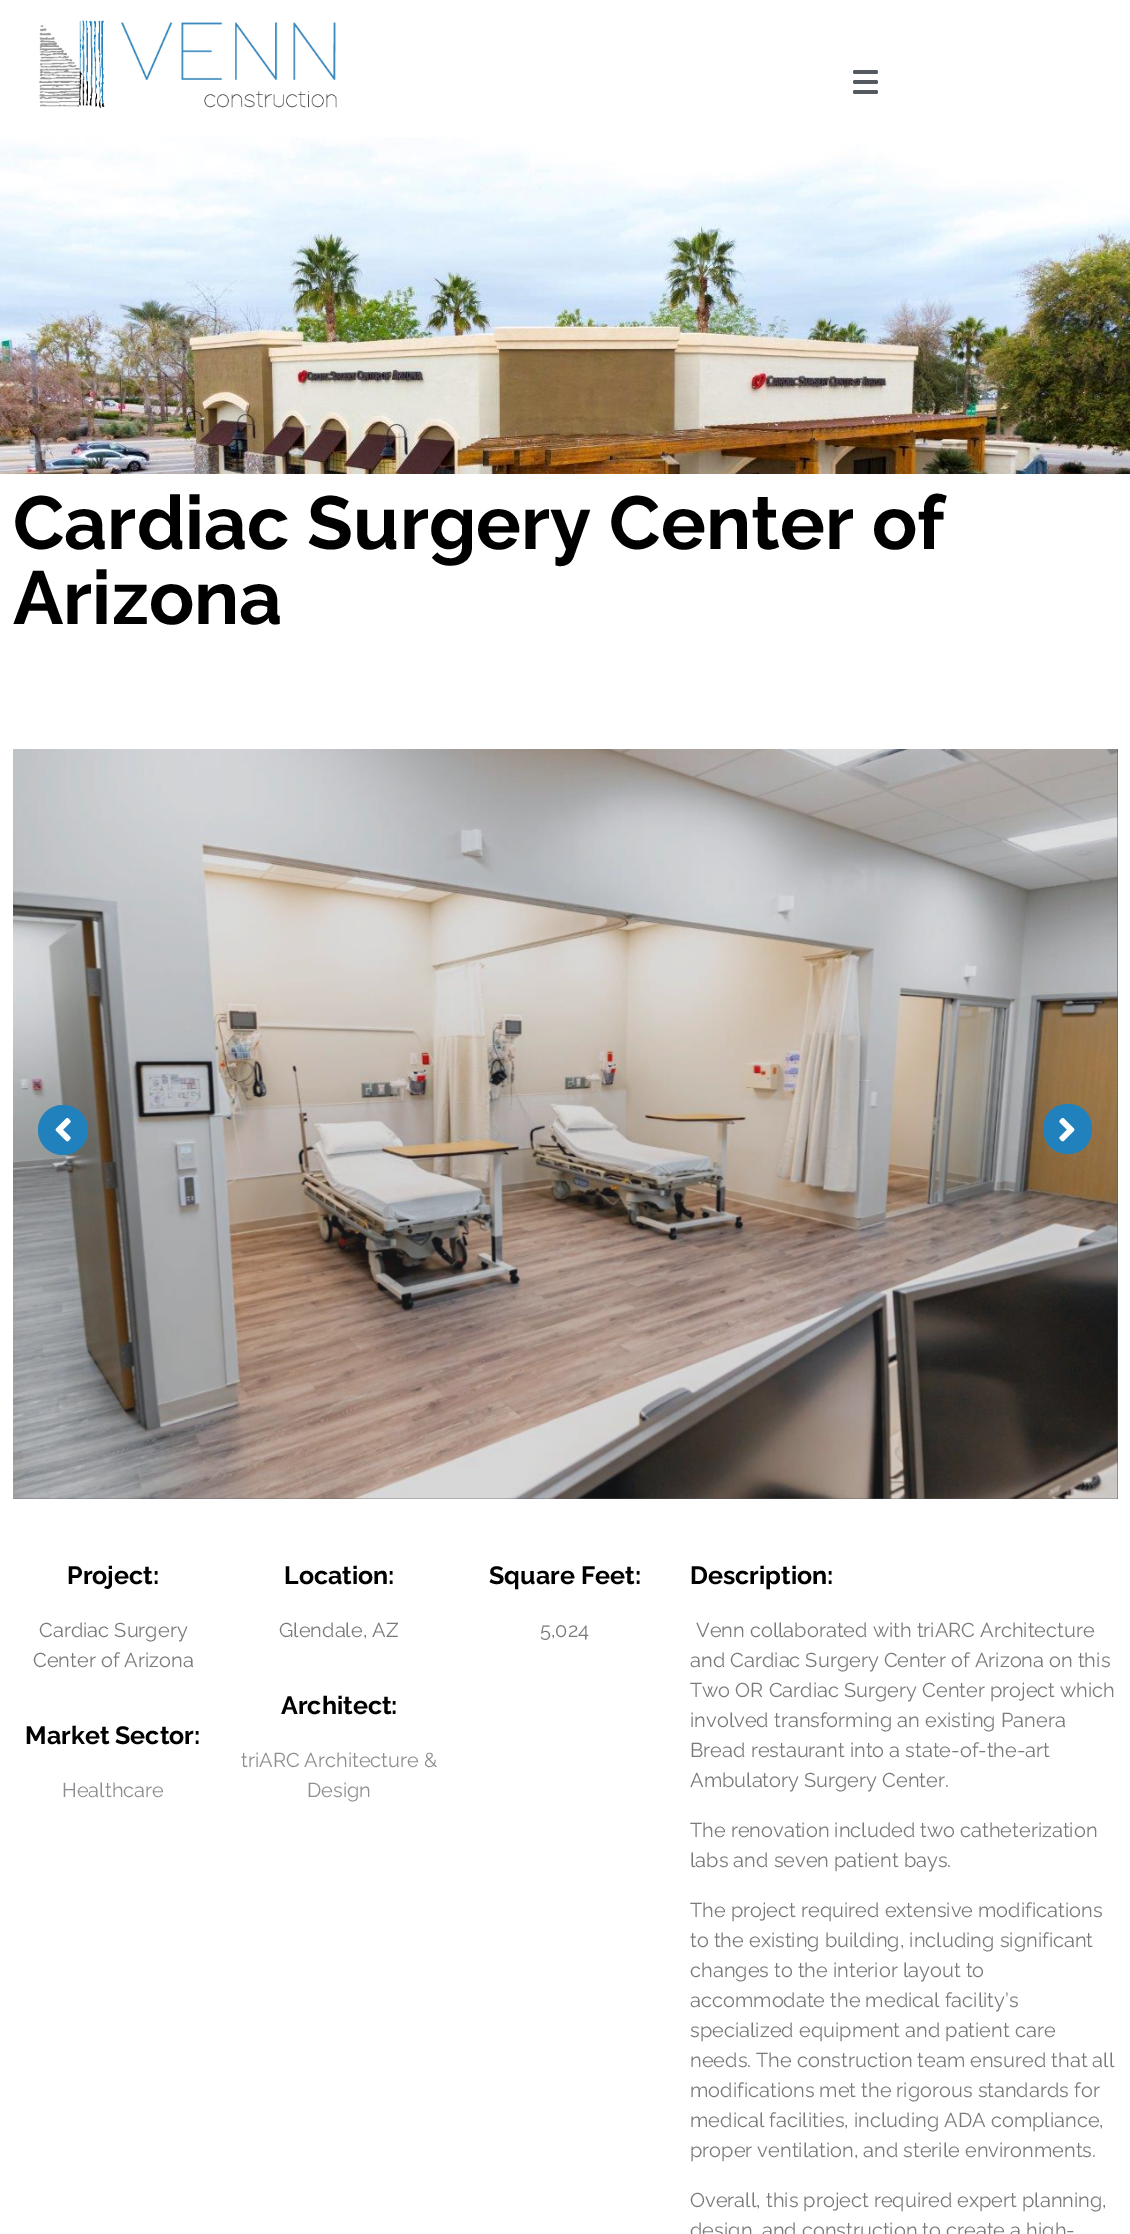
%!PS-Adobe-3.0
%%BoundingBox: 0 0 1130 2234
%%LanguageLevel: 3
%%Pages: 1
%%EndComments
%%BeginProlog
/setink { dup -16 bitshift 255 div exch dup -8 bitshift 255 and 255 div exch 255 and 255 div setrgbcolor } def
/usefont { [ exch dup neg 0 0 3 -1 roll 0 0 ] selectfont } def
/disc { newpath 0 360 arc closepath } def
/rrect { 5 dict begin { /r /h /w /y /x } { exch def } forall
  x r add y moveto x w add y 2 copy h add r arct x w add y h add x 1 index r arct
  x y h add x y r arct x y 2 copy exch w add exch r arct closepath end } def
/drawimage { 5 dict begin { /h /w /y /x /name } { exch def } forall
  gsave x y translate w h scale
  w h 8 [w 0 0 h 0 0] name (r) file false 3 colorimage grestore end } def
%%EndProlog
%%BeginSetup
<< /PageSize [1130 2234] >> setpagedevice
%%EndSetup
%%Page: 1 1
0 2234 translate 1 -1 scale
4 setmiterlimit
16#FFFFFF setink
0 0 1130 2234 rectfill
(img1.raw) 38 20 299 89 drawimage
16#54595F setink
853 80 25 4 2 rrect fill
853 70 25 4 2 rrect fill
853 90 25 4 2 rrect fill
(img2.raw) 0 137 1130 337 drawimage
/Raleway-Bold 75 usefont
16#000000 setink
13 549 moveto (Cardiac Surgery Center of) show
13 624 moveto (Arizona) show
16#54595F setink
13 749 1105 750 rectfill
(img3.raw) 13 749 1105 750 drawimage
16#2181BC setink
63 1130 25 disc fill
(img4.raw) 55 1118 16 24 drawimage
1068 1104 moveto 1035 1104 1035 1154 1068 1154 curveto 1100 1154 1100 1104 1068 1104 curveto closepath fill
(img5.raw) 1059 1118 16 24 drawimage
/Raleway-Bold 25 usefont
16#000000 setink
67 1584 moveto (Project:) show
/Raleway-Regular 20 usefont
16#7A7A7A setink
39 1637 moveto (Cardiac Surgery) show
33 1667 moveto (Center of Arizona) show
/Raleway-Bold 25 usefont
16#000000 setink
25 1744 moveto (Market Sector:) show
/Raleway-Regular 20 usefont
16#8C8E91 setink
62 1797 moveto (Healthcare) show
/Raleway-Bold 25 usefont
16#000000 setink
284 1584 moveto (Location:) show
/Raleway-Regular 20 usefont
16#7A7A7A setink
279 1637 moveto (Glendale, AZ) show
/Raleway-Bold 25 usefont
16#000000 setink
281 1714 moveto (Architect:) show
/Raleway-Regular 20 usefont
16#8C8E91 setink
241 1767 moveto (triARC Architecture &) show
307 1797 moveto (Design) show
/Raleway-Bold 25 usefont
16#000000 setink
489 1584 moveto (Square Feet:) show
/Raleway-Regular 20 usefont
16#7A7A7A setink
540 1637 moveto (5,024) show
/Raleway-Bold 25 usefont
16#000000 setink
690 1584 moveto (Description:) show
/Raleway-Regular 20 usefont
16#7A7A7A setink
[
    [(Venn collaborated with triARC Architecture) 696 1637]
    [(and Cardiac Surgery Center of Arizona on this) 690 1667]
    [(Two OR Cardiac Surgery Center project which) 690 1697]
    [(involved transforming an existing Panera) 690 1727]
    [(Bread restaurant into a state-of-the-art) 690 1757]
    [(Ambulatory Surgery Center.) 690 1787]
    [(The renovation included two catheterization) 690 1837]
    [(labs and seven patient bays.) 690 1867]
    [(The project required extensive modifications) 690 1917]
    [(to the existing building, including significant) 690 1947]
    [(changes to the interior layout to) 690 1977]
    [(accommodate the medical facility’s) 690 2007]
    [(specialized equipment and patient care) 690 2037]
    [(needs. The construction team ensured that all) 690 2067]
    [(modifications met the rigorous standards for) 690 2097]
    [(medical facilities, including ADA compliance,) 690 2127]
    [(proper ventilation, and sterile environments.) 690 2157]
    [(Overall, this project required expert planning,) 690 2207]
    [(design, and construction to create a high-) 690 2237]
] { aload pop moveto show } forall
showpage
%%EOF
